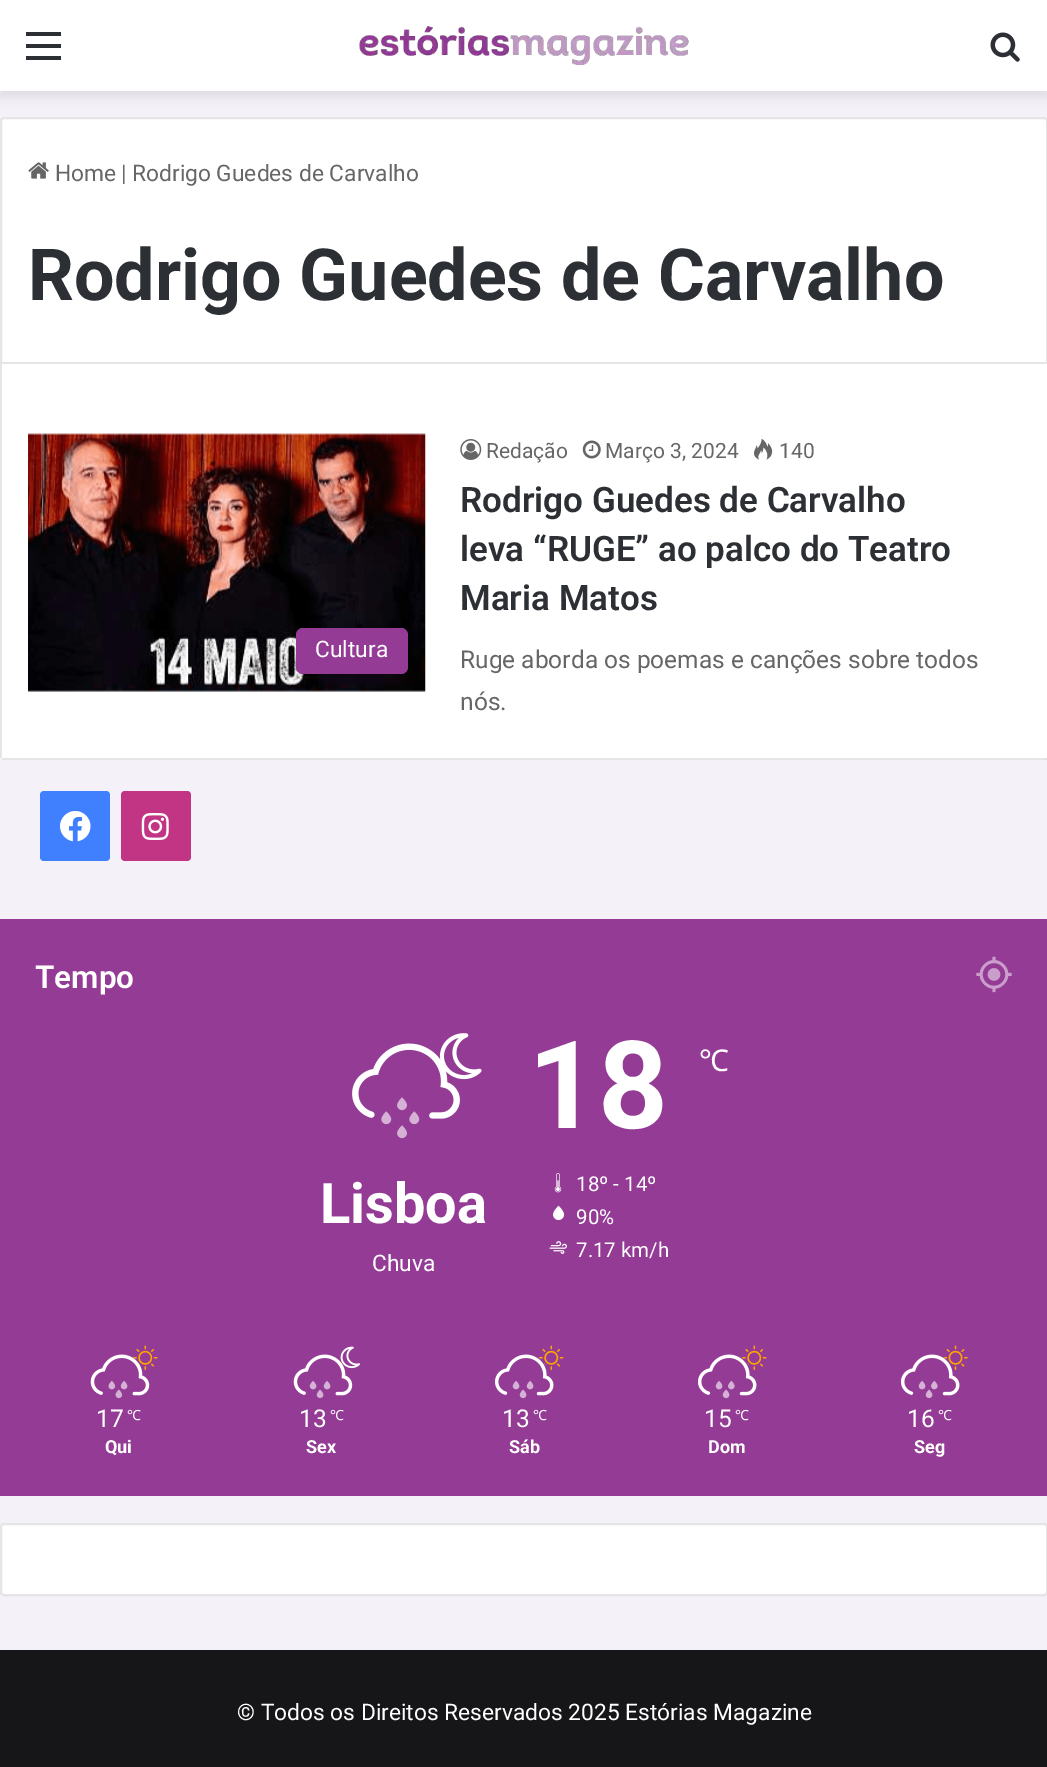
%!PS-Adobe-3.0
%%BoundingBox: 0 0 1047 1767
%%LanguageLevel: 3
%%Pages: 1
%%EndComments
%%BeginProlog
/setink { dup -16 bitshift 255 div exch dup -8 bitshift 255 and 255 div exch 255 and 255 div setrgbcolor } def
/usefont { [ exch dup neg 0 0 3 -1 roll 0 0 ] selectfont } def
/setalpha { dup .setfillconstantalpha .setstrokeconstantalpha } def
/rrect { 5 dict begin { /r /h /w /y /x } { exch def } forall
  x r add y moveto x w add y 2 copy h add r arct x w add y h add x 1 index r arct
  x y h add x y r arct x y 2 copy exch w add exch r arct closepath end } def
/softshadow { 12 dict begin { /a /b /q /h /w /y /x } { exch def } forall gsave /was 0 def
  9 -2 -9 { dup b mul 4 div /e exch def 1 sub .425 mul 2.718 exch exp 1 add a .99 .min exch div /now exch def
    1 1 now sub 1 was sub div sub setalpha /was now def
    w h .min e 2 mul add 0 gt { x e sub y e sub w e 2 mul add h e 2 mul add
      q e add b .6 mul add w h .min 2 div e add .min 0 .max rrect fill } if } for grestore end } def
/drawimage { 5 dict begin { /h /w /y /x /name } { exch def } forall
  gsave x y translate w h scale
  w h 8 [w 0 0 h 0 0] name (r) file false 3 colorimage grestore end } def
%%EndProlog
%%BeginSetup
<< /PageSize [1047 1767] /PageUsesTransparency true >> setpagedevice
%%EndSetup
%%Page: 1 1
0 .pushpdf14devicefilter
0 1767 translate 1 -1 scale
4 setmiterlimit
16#F5F1F8 setink
0 0 1047 1767 rectfill
16#000000 setink
0 5 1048 91 0 6 0.1 softshadow
[
    [0 0 1047 91 16#FFFFFF]
    [26 44 35 4 16#2C2F34]
    [26 32 35 4 16#2C2F34]
    [26 56 35 4 16#2C2F34]
] { aload pop setink rectfill } forall
(img1.raw) 359 26 330 39 drawimage
(img2.raw) 990 32 30 30 drawimage
16#FFFFFF setink
4 117 moveto 1044 117 lineto 1046 117 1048 119 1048 121 curveto 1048 364 lineto 0 364 lineto 0 121 lineto 0 119 2 117 4 117 curveto closepath fill
0.1 setalpha
16#000000 setink
2 setlinewidth
4 118 moveto 1044 118 lineto 1045.5 118 1047 119.5 1047 121 curveto 1047 363 lineto 1 363 lineto 1 121 lineto 1 119.5 2.5 118 4 118 curveto closepath stroke
1 setalpha
(img3.raw) 28 162 21 17 drawimage
/Roboto-Regular 22.75 usefont
16#666666 setink
[
    [(Home) 55 181]
    [(|) 121 181]
    [(Rodrigo Guedes de Carvalho) 132 181]
] { aload pop moveto show } forall
/Roboto-Bold 71.75 usefont
16#2C2F34 setink
28 300 moveto (Rodrigo Guedes de Carvalho) show
16#FFFFFF setink
0 364 moveto 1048 364 lineto 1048 756 lineto 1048 758 1046 760 1044 760 curveto 4 760 lineto 2 760 0 758 0 756 curveto closepath fill
0.1 setalpha
16#000000 setink
2 758 1045 2 rectfill
0 364 2 394 rectfill
1 setalpha
(img4.raw) 28 433 398 259 drawimage
16#943B96 setink
296 628 112 46 7 rrect fill
/Roboto-Regular 22.75 usefont
16#FFFFFF setink
315 657 moveto (Cultura) show
(img5.raw) 460 439 22 21 drawimage
/Roboto-Regular 21 usefont
16#666666 setink
486 458 moveto (Redação) show
(img6.raw) 582 440 19 19 drawimage
605 458 moveto (Março 3, 2024) show
(img7.raw) 754 438 19 22 drawimage
779 458 moveto (140) show
/Roboto-SemiBold 35 usefont
16#2C2F34 setink
[
    [(Rodrigo Guedes de Carvalho) 460 512]
    [(leva “RUGE” ao palco do Teatro) 460 561]
    [(Maria Matos) 460 610]
] { aload pop moveto show } forall
/Roboto-Regular 24.5 usefont
16#666666 setink
460 668 moveto (Ruge aborda os poemas e canções sobre todos) show
460 710 moveto (nós.) show
16#4080FF setink
40 791 70 70 4 rrect fill
(img8.raw) 60 811 31 31 drawimage
16#C13584 setink
121 791 70 70 4 rrect fill
(img9.raw) 141 813 28 27 drawimage
16#943B96 setink
0 919 1047 577 rectfill
/Roboto-SemiBold 31.5 usefont
16#FFFFFF setink
35 988 moveto (Tempo) show
(img10.raw) 976 956 36 37 drawimage
(img12.raw) 439 1033 43 47 drawimage
(img11.raw) 352 1043 108 76 drawimage
(img13.raw) 397 1097 10 14 drawimage
(img14.raw) 381 1111 11 14 drawimage
(img14.raw) 409 1111 11 14 drawimage
(img13.raw) 397 1125 10 14 drawimage
/Roboto-Bold 56 usefont
320 1223 moveto (Lisboa) show
/Roboto-Regular 22.75 usefont
372 1271 moveto (Chuva) show
/Roboto-Bold 122 usefont
528 1128 moveto (18) show
/NotoSans-Regular 30 usefont
699 1071 moveto (℃) show
(img15.raw) 554 1173 8 20 drawimage
/Roboto-Regular 20.5 usefont
576 1191 moveto (18º - 14º) show
(img16.raw) 553 1205 12 16 drawimage
576 1224 moveto (90%) show
(img17.raw) 549 1241 18 13 drawimage
576 1257 moveto (7.17 km/h) show
(img18.raw) 133 1345 25 25 drawimage
16#943B96 setink
136 1365 3 2 rectfill
(img19.raw) 90 1354 60 42 drawimage
(img20.raw) 108 1380 8 10 drawimage
(img21.raw) 120 1380 8 10 drawimage
(img22.raw) 115 1389 8 10 drawimage
/Roboto-Regular 24.5 usefont
16#FFFFFF setink
96 1427 moveto (17) show
/NotoSans-Regular 14 usefont
127 1420 moveto (℃) show
/Roboto-Bold 18 usefont
105 1453 moveto (Qui) show
(img23.raw) 340 1346 20 23 drawimage
(img24.raw) 293 1354 60 42 drawimage
(img21.raw) 309 1380 8 10 drawimage
(img21.raw) 323 1380 8 10 drawimage
(img25.raw) 316 1389 8 10 drawimage
/Roboto-Regular 24.5 usefont
299 1427 moveto (13) show
/NotoSans-Regular 14 usefont
330 1420 moveto (℃) show
/Roboto-Bold 18 usefont
306 1453 moveto (Sex) show
(img18.raw) 539 1345 25 25 drawimage
16#943B96 setink
542 1364 3 3 rectfill
(img26.raw) 495 1354 59 42 drawimage
(img21.raw) 512 1380 8 10 drawimage
(img21.raw) 526 1380 8 10 drawimage
(img25.raw) 519 1389 8 10 drawimage
/Roboto-Regular 24.5 usefont
16#FFFFFF setink
502 1427 moveto (13) show
/NotoSans-Regular 14 usefont
533 1420 moveto (℃) show
/Roboto-Bold 18 usefont
509 1453 moveto (Sáb) show
(img18.raw) 742 1345 25 25 drawimage
16#943B96 setink
745 1364 3 3 rectfill
(img26.raw) 698 1354 59 42 drawimage
(img21.raw) 715 1380 8 10 drawimage
(img27.raw) 728 1380 7 10 drawimage
(img28.raw) 722 1389 8 10 drawimage
/Roboto-Regular 24.5 usefont
16#FFFFFF setink
704 1427 moveto (15) show
/NotoSans-Regular 14 usefont
735 1420 moveto (℃) show
/Roboto-Bold 18 usefont
708 1453 moveto (Dom) show
(img29.raw) 943 1345 25 25 drawimage
(img31.raw) 943 1357 7 10 drawimage
(img30.raw) 901 1354 59 42 drawimage
(img21.raw) 918 1380 8 10 drawimage
(img27.raw) 931 1380 7 10 drawimage
(img28.raw) 925 1389 8 10 drawimage
/Roboto-Regular 24.5 usefont
907 1427 moveto (16) show
/NotoSans-Regular 14 usefont
938 1420 moveto (℃) show
/Roboto-Bold 18 usefont
914 1453 moveto (Seg) show
0 1523 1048 73 4 rrect fill
0.1 setalpha
16#000000 setink
1 1524 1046 71 3 rrect stroke
1 setalpha
16#161619 setink
0 1650 1047 117 rectfill
/Roboto-Regular 22.75 usefont
16#FFFFFF setink
237 1720 moveto (© Todos os Direitos Reservados 2025 Estórias Magazine) show
.poppdf14devicefilter showpage
%%EOF
